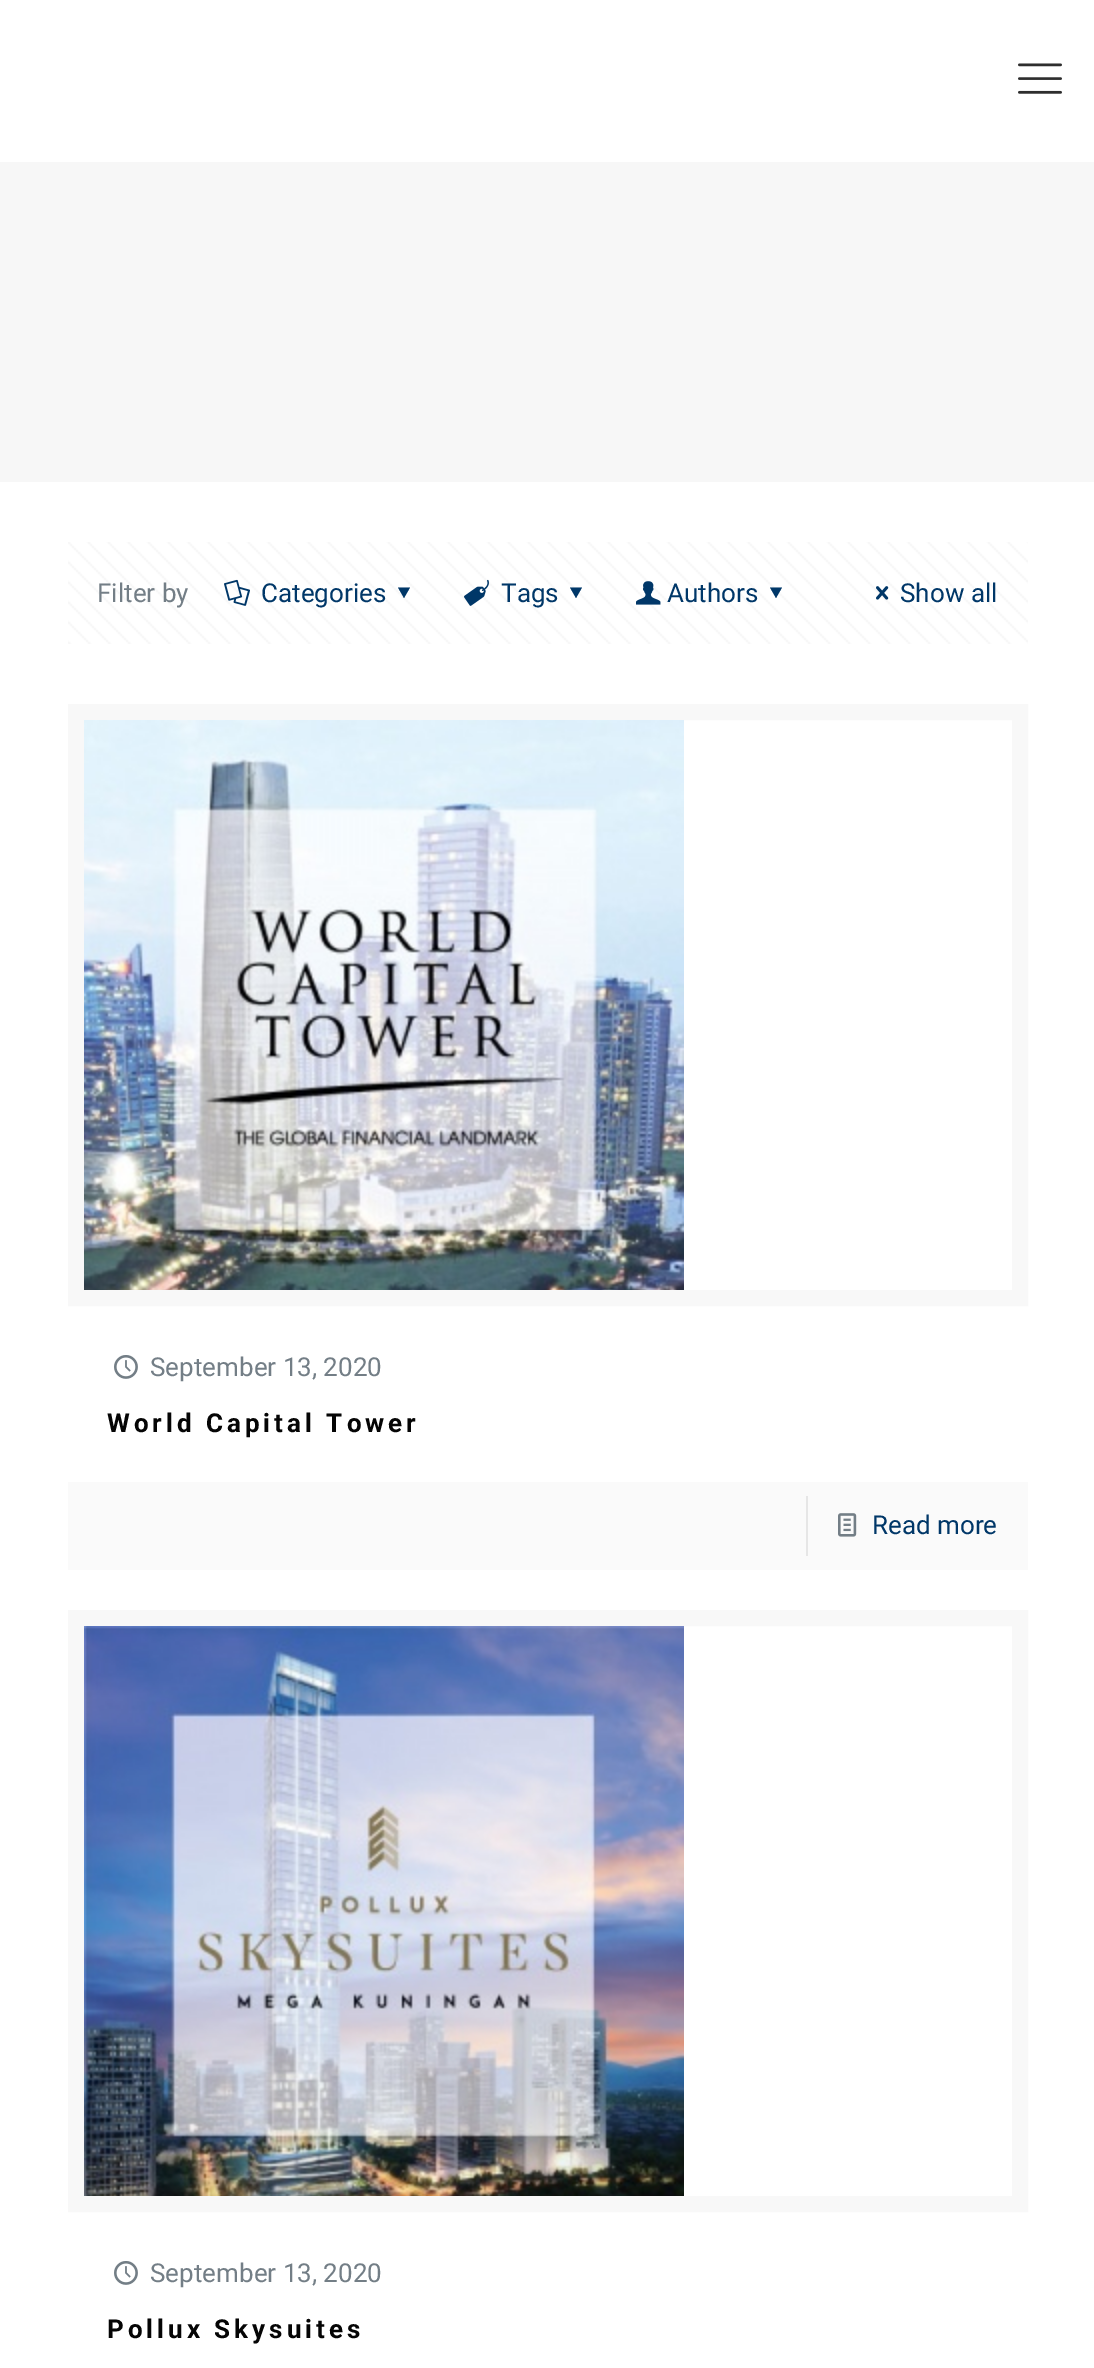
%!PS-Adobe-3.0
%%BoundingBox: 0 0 1094 2368
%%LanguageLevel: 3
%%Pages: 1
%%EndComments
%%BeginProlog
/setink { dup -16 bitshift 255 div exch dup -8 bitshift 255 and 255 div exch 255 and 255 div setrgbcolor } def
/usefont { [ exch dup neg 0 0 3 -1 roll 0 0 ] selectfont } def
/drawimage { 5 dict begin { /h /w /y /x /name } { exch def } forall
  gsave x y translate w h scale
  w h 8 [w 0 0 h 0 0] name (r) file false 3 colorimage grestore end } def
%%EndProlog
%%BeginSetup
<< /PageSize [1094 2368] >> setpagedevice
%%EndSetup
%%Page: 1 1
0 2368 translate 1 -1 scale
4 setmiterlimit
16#FFFFFF setink
0 0 1094 2368 rectfill
(img1.raw) 1018 63 44 31 drawimage
16#F7F7F7 setink
0 162 1094 320 rectfill
(img2.raw) 68 542 960 102 drawimage
/Roboto-Regular 26 usefont
16#737E86 setink
97 602 moveto (Filter by) show
(img3.raw) 224 579 26 27 drawimage
16#003768 setink
261 602 moveto (Categories) show
410 587.5 moveto 404 598 lineto 398 587.5 lineto closepath fill
(img4.raw) 464 579 25 27 drawimage
501 602 moveto (Tags) show
582 587.5 moveto 576 598 lineto 570 587.5 lineto closepath fill
(img5.raw) 636 581 25 24 drawimage
667 602 moveto (Authors) show
782 587.5 moveto 776 598 lineto 770 587.5 lineto closepath fill
(img6.raw) 876 586 13 14 drawimage
900 602 moveto (Show all) show
16#F8F8F8 setink
16 setlinewidth
76 712 944 586 rectstroke
(img7.raw) 84 720 600 570 drawimage
(img8.raw) 114 1355 24 24 drawimage
16#737E86 setink
150 1376 moveto (September 13, 2020) show
/Roboto-Bold 26 usefont
16#050505 setink
107 1432 moveto 4 0 (World Capital Tower) ashow
16#FAFAFA setink
68 1482 960 88 rectfill
16#E6E6E6 setink
806 1496 2 60 rectfill
(img9.raw) 838 1513 19 24 drawimage
/Roboto-Regular 26 usefont
16#003768 setink
872 1534 moveto (Read more) show
16#F8F8F8 setink
76 1618 944 586 rectstroke
(img10.raw) 84 1626 600 570 drawimage
(img8.raw) 114 2261 24 24 drawimage
16#737E86 setink
150 2282 moveto (September 13, 2020) show
/Roboto-Bold 26 usefont
16#050505 setink
107 2338 moveto 4 0 (Pollux Skysuites) ashow
showpage
%%EOF
